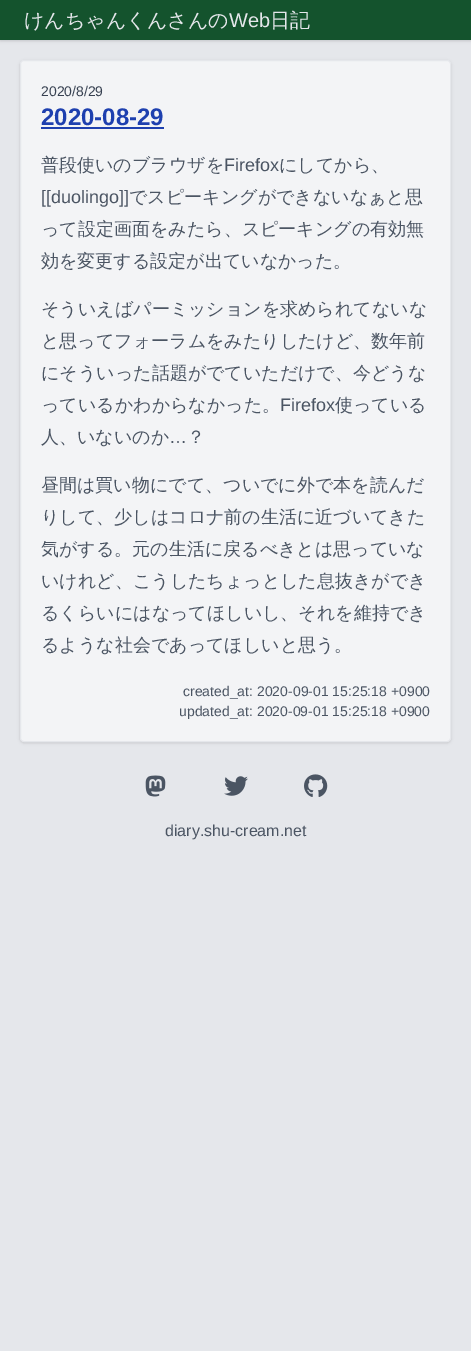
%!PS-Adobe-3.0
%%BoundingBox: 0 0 471 1351
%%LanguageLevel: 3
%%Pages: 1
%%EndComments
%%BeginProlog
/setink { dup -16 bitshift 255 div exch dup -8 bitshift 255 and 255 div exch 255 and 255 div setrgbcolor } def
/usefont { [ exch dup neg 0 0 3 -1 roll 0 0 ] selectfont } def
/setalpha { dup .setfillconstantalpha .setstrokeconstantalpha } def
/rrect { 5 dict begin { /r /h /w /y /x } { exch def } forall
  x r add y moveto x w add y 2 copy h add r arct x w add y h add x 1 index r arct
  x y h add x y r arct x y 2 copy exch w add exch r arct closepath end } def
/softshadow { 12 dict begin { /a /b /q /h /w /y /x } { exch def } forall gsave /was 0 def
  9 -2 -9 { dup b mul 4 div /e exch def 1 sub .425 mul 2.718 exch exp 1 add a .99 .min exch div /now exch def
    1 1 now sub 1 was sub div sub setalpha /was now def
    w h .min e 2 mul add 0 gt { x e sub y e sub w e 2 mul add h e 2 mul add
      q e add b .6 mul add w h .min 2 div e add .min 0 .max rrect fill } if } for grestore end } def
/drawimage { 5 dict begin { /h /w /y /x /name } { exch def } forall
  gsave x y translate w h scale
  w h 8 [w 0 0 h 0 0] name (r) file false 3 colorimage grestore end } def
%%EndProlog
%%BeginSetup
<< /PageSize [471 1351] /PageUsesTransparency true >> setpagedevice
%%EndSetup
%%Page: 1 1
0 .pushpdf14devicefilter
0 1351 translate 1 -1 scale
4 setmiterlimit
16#E5E7EB setink
0 0 471 1351 rectfill
16#000000 setink
1 2 469 38 0 1 0.1 softshadow
0 1 471 40 0 1.5 0.1 softshadow
16#14532D setink
0 0 471 40 rectfill
/WenQuanYiZenHei-Medium 20 usefont
16#E5E7EB setink
24 27 moveto (けんちゃんくんさんの) show
/LiberationSans-Regular 20 usefont
229 27 moveto (Web) show
/WenQuanYiZenHei-Medium 20 usefont
270 27 moveto (日記) show
16#000000 setink
21 62 429 680 3 1 0.1 softshadow
20 61 431 682 4 1.5 0.1 softshadow
16#F3F4F6 setink
20.5 60.5 430 681 3.5 rrect gsave fill grestore
16#E5E7EB setink
stroke
/LiberationSans-Regular 14 usefont
16#374151 setink
41 96 moveto (2020/8/29) show
/LiberationSans-Bold 24 usefont
16#1E40AF setink
41 125 moveto (2020-08-29) show
41 127 123 2 rectfill
/WenQuanYiZenHei-Medium 18 usefont
16#4B5563 setink
41 171 moveto (普段使いのブラウザを) show
/LiberationSans-Regular 18 usefont
224 171 moveto (Firefox) show
/WenQuanYiZenHei-Medium 18 usefont
279 171 moveto (にしてから、) show
/LiberationSans-Regular 18 usefont
41 203 moveto ([[duolingo]]) show
/WenQuanYiZenHei-Medium 18 usefont
[
    [(でスピーキングができないなぁと思) 129 203]
    [(って設定画面をみたら、スピーキングの有効無) 41 235]
    [(効を変更する設定が出ていなかった。) 41 267]
    [(そういえばパーミッションを求められてないな) 41 315]
    [(と思ってフォーラムをみたりしたけど、数年前) 41 347]
    [(にそういった話題がでていただけで、今どうな) 41 379]
    [(っているかわからなかった。) 41 411]
] { aload pop moveto show } forall
/LiberationSans-Regular 18 usefont
280 411 moveto (Firefox) show
/WenQuanYiZenHei-Medium 18 usefont
335 411 moveto (使っている) show
41 443 moveto (人、いないのか) show
/LiberationSans-Regular 18 usefont
169 443 moveto (…) show
/WenQuanYiZenHei-Medium 18 usefont
[
    [(？) 187 443]
    [(昼間は買い物にでて、ついでに外で本を読んだ) 41 491]
    [(りして、少しはコロナ前の生活に近づいてきた) 41 523]
    [(気がする。元の生活に戻るべきとは思っていな) 41 555]
    [(いけれど、こうしたちょっとした息抜きができ) 41 587]
    [(るくらいにはなってほしいし、それを維持でき) 41 619]
    [(るような社会であってほしいと思う。) 41 651]
] { aload pop moveto show } forall
/LiberationSans-Regular 14 usefont
183 696 moveto (created_at: 2020-09-01 15:25:18 +0900) show
179 716 moveto (updated_at: 2020-09-01 15:25:18 +0900) show
(img1.raw) 145 775 21 22 drawimage
(img2.raw) 224 776 24 20 drawimage
(img3.raw) 304 774 24 23 drawimage
/LiberationSans-Regular 16 usefont
165 836 moveto (diary.shu-cream.net) show
.poppdf14devicefilter showpage
%%EOF
